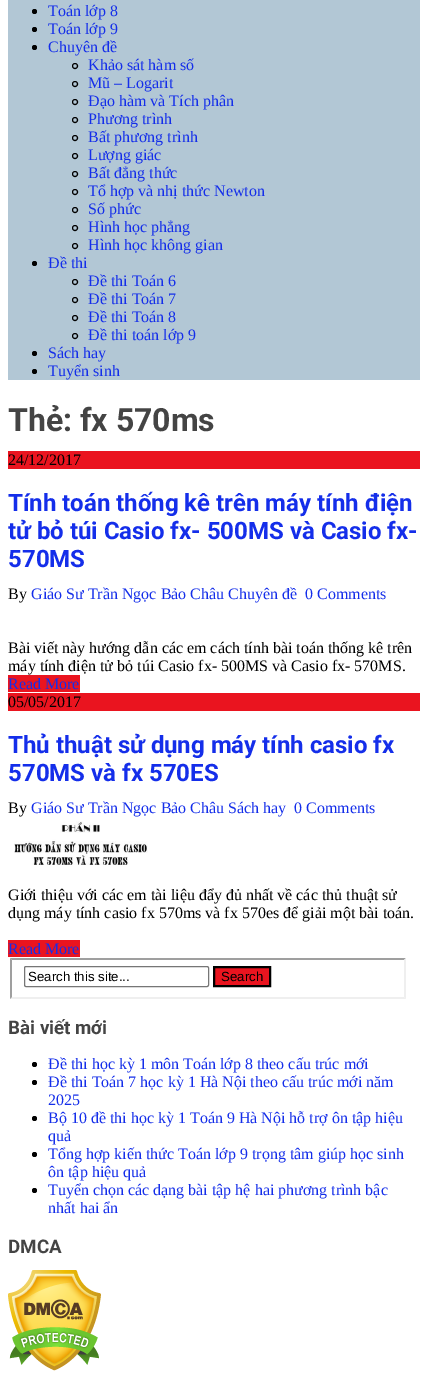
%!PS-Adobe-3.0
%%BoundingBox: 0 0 428 1374
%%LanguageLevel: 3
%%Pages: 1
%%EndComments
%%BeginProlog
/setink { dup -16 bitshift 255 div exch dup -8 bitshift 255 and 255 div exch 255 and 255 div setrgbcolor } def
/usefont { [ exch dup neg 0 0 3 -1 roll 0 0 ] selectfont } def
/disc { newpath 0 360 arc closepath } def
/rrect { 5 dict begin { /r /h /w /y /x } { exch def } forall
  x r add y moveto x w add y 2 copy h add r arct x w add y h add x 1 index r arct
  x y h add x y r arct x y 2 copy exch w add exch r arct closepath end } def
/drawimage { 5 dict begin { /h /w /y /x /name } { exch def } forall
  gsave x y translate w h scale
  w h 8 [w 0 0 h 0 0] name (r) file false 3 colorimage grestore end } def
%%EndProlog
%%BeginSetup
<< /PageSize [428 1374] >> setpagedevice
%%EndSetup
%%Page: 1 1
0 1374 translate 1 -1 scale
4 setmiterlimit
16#FFFFFF setink
0 0 428 1374 rectfill
16#B2C7D5 setink
8 0 412 380 rectfill
16#000000 setink
34.5 11.5 2.5 disc fill
/LiberationSerif-Regular 16 usefont
16#142EEA setink
48 16 moveto (Toán lớp 8) show
16#000000 setink
34.5 29.5 2.5 disc fill
16#142EEA setink
48 34 moveto (Toán lớp 9) show
16#000000 setink
34.5 47.5 2.5 disc fill
16#142EEA setink
48 52 moveto (Chuyên đề) show
16#000000 setink
75 66 2.5 disc stroke
16#142EEA setink
88 70 moveto (Khảo sát hàm số) show
16#000000 setink
75 84 2.5 disc stroke
16#142EEA setink
88 88 moveto (Mũ – Logarit) show
16#000000 setink
75 102 2.5 disc stroke
16#142EEA setink
88 106 moveto (Đạo hàm và Tích phân) show
16#000000 setink
75 120 2.5 disc stroke
16#142EEA setink
88 124 moveto (Phương trình) show
16#000000 setink
75 138 2.5 disc stroke
16#142EEA setink
88 142 moveto (Bất phương trình) show
16#000000 setink
75 156 2.5 disc stroke
16#142EEA setink
88 160 moveto (Lượng giác) show
16#000000 setink
75 174 2.5 disc stroke
16#142EEA setink
88 178 moveto (Bất đẳng thức) show
16#000000 setink
75 192 2.5 disc stroke
16#142EEA setink
88 196 moveto (Tổ hợp và nhị thức Newton) show
16#000000 setink
75 210 2.5 disc stroke
16#142EEA setink
88 214 moveto (Số phức) show
16#000000 setink
75 228 2.5 disc stroke
16#142EEA setink
88 232 moveto (Hình học phẳng) show
16#000000 setink
75 246 2.5 disc stroke
16#142EEA setink
88 250 moveto (Hình học không gian) show
16#000000 setink
34.5 263.5 2.5 disc fill
16#142EEA setink
48 268 moveto (Đề thi) show
16#000000 setink
75 282 2.5 disc stroke
16#142EEA setink
88 286 moveto (Đề thi Toán 6) show
16#000000 setink
75 300 2.5 disc stroke
16#142EEA setink
88 304 moveto (Đề thi Toán 7) show
16#000000 setink
75 318 2.5 disc stroke
16#142EEA setink
88 322 moveto (Đề thi Toán 8) show
16#000000 setink
75 336 2.5 disc stroke
16#142EEA setink
88 340 moveto (Đề thi toán lớp 9) show
16#000000 setink
34.5 353.5 2.5 disc fill
16#142EEA setink
48 358 moveto (Sách hay) show
16#000000 setink
34.5 371.5 2.5 disc fill
16#142EEA setink
48 376 moveto (Tuyển sinh) show
/Roboto-Bold 32 usefont
16#444444 setink
8 431 moveto (Thẻ: fx 570ms) show
16#EA141F setink
8 451 412 18 rectfill
/LiberationSerif-Regular 16 usefont
16#000000 setink
8 465 moveto (24/12/2017) show
/Roboto-Bold 24 usefont
16#142EEA setink
[
    [(Tính toán thống kê trên máy tính điện) 8 511]
    [(tử bỏ túi Casio fx- 500MS và Casio fx-) 8 539]
    [(570MS) 8 567]
] { aload pop moveto show } forall
/LiberationSerif-Regular 16 usefont
16#000000 setink
8 599 moveto (By) show
16#142EEA setink
31 599 moveto (Giáo Sư Trần Ngọc Bảo Châu Chuyên đề) show
305 599 moveto (0 Comments) show
16#000000 setink
8 653 moveto (Bài viết này hướng dẫn các em cách tính bài toán thống kê trên) show
8 671 moveto (máy tính điện tử bỏ túi Casio fx- 500MS và Casio fx- 570MS.) show
16#EA141F setink
8 675 72 17 rectfill
16#142EEA setink
8 689 moveto (Read More) show
16#EA141F setink
8 693 412 18 rectfill
16#000000 setink
8 707 moveto (05/05/2017) show
/Roboto-Bold 24 usefont
16#142EEA setink
8 753 moveto (Thủ thuật sử dụng máy tính casio fx) show
8 781 moveto (570MS và fx 570ES) show
/LiberationSerif-Regular 16 usefont
16#000000 setink
8 813 moveto (By) show
16#142EEA setink
31 813 moveto (Giáo Sư Trần Ngọc Bảo Châu Sách hay) show
294 813 moveto (0 Comments) show
(img1.raw) 14 821 134 44 drawimage
16#000000 setink
8 900 moveto (Giới thiệu với các em tài liệu đẩy đủ nhất về các thủ thuật sử) show
8 918 moveto (dụng máy tính casio fx 570ms và fx 570es để giải một bài toán.) show
16#EA141F setink
8 940 72 17 rectfill
16#142EEA setink
8 954 moveto (Read More) show
16#9F9F9F setink
10 958 moveto 406 958 lineto 404 960 lineto 12 960 lineto closepath fill
16#EFEFEF setink
406 958 moveto 406 999 lineto 404 997 lineto 404 960 lineto closepath fill
406 999 moveto 10 999 lineto 12 997 lineto 404 997 lineto closepath fill
16#9F9F9F setink
10 999 moveto 10 958 lineto 12 960 lineto 12 997 lineto closepath fill
16#767676 setink
24.5 966.5 184 20 1.5 rrect stroke
/LiberationSans-Regular 13.25 usefont
16#000000 setink
28 981 moveto (Search this site...) show
16#EA141F setink
214 967 moveto 270 967 lineto 270 986 lineto 214 986 lineto closepath gsave fill grestore
16#000000 setink
2 setlinewidth
stroke
221 981 moveto (Search) show
/Roboto-Bold 18.75 usefont
16#444444 setink
8 1034 moveto (Bài viết mới) show
16#000000 setink
34.5 1064.5 2.5 disc fill
/LiberationSerif-Regular 16 usefont
16#142EEA setink
48 1069 moveto (Đề thi học kỳ 1 môn Toán lớp 8 theo cấu trúc mới) show
16#000000 setink
34.5 1082.5 2.5 disc fill
16#142EEA setink
48 1087 moveto (Đề thi Toán 7 học kỳ 1 Hà Nội theo cấu trúc mới năm) show
48 1105 moveto (2025) show
16#000000 setink
34.5 1118.5 2.5 disc fill
16#142EEA setink
48 1123 moveto (Bộ 10 đề thi học kỳ 1 Toán 9 Hà Nội hỗ trợ ôn tập hiệu) show
48 1141 moveto (quả) show
16#000000 setink
34.5 1154.5 2.5 disc fill
16#142EEA setink
48 1159 moveto (Tổng hợp kiến thức Toán lớp 9 trọng tâm giúp học sinh) show
48 1177 moveto (ôn tập hiệu quả) show
16#000000 setink
34.5 1190.5 2.5 disc fill
16#142EEA setink
48 1195 moveto (Tuyển chọn các dạng bài tập hệ hai phương trình bậc) show
48 1213 moveto (nhất hai ẩn) show
/Roboto-Bold 18.75 usefont
16#444444 setink
8 1253 moveto (DMCA) show
(img2.raw) 8 1270 93 101 drawimage
showpage
%%EOF
